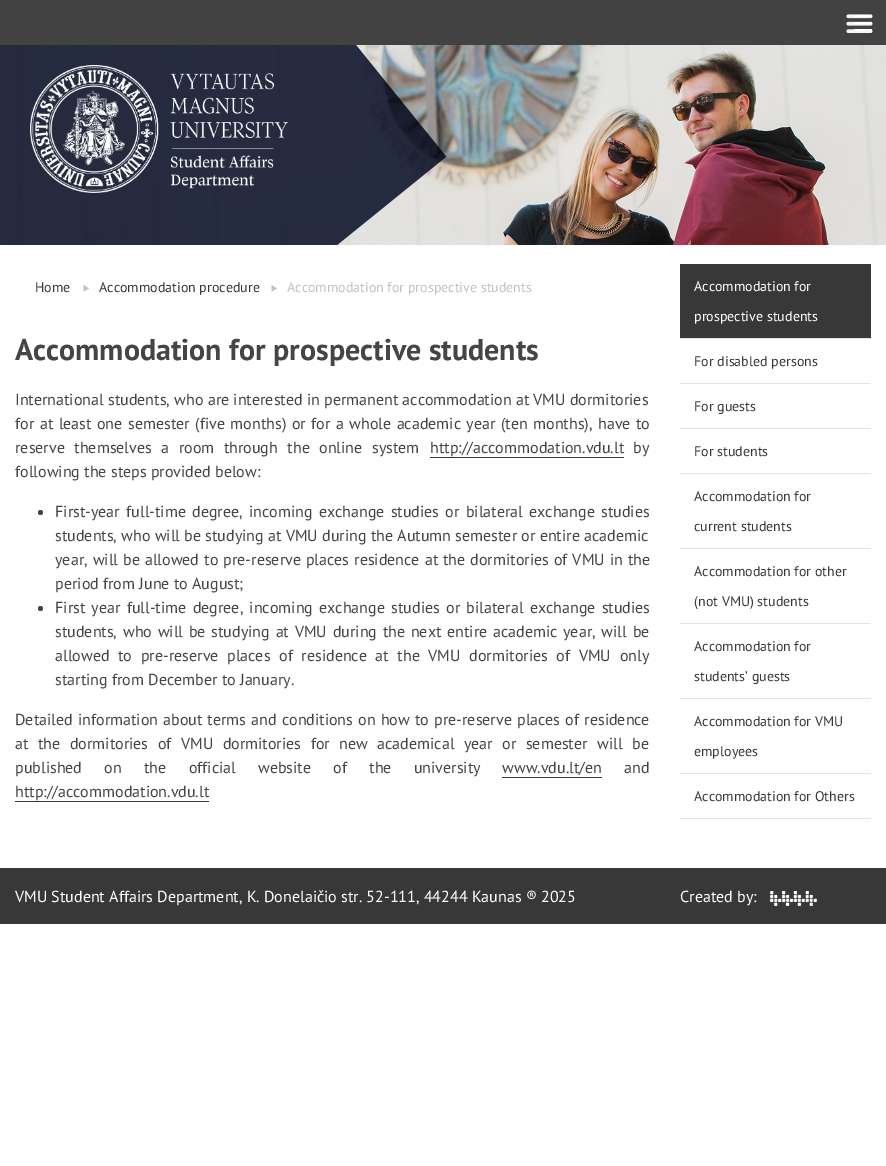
%!PS-Adobe-3.0
%%BoundingBox: 0 0 886 1166
%%LanguageLevel: 3
%%Pages: 1
%%EndComments
%%BeginProlog
/setink { dup -16 bitshift 255 div exch dup -8 bitshift 255 and 255 div exch 255 and 255 div setrgbcolor } def
/usefont { [ exch dup neg 0 0 3 -1 roll 0 0 ] selectfont } def
/disc { newpath 0 360 arc closepath } def
/drawimage { 5 dict begin { /h /w /y /x /name } { exch def } forall
  gsave x y translate w h scale
  w h 8 [w 0 0 h 0 0] name (r) file false 3 colorimage grestore end } def
%%EndProlog
%%BeginSetup
<< /PageSize [886 1166] >> setpagedevice
%%EndSetup
%%Page: 1 1
0 1166 translate 1 -1 scale
4 setmiterlimit
16#FFFFFF setink
0 0 886 1166 rectfill
16#424242 setink
0 0 886 45 rectfill
(img1.raw) 846 14 27 19 drawimage
[
    [854 29 18 2 16#FFFFFF]
    [854 22 18 2 16#FFFFFF]
    [854 15 18 2 16#FFFFFF]
] { aload pop setink rectfill } forall
(img2.raw) 0 45 886 200 drawimage
(img3.raw) 30 65 258 128 drawimage
/PTSans-Regular 14 usefont
16#383838 setink
35 292 moveto (Home) show
99 292 moveto (Accommodation procedure) show
16#C2C2C2 setink
83.5 285 moveto 89 288.5 lineto 83.5 291.5 lineto closepath fill
287 292 moveto (Accommodation for prospective students) show
271.5 285 moveto 277 288.5 lineto 271.5 291.5 lineto closepath fill
/PTSans-Bold 30 usefont
16#454545 setink
15 360 moveto (Accommodation for prospective students) show
/PTSans-Regular 16 usefont
15 405 moveto (International students, who are interested in permanent accommodation at VMU dormitories) show
15 429 moveto 1.25 0 32 (for at least one semester \(five months\) or for a whole academic year \(ten months\), have to) widthshow
15 453 moveto 5.25 0 32 (reserve themselves a room through the online system) widthshow
430 453 moveto (http://accommodation.vdu.lt) show
16#383838 setink
430 457 194 1 rectfill
16#454545 setink
633 453 moveto (by) show
15 477 moveto (following the steps provided below:) show
40.5 512.5 2.5 disc fill
55 517 moveto 2 0 32 (First-year full-time degree, incoming exchange studies or bilateral exchange studies) widthshow
55 541 moveto (students, who will be studying at VMU during the Autumn semester or entire academic) show
55 565 moveto 0.75 0 32 (year, will be allowed to pre-reserve places residence at the dormitories of VMU in the) widthshow
55 589 moveto (period from June to August;) show
40.5 608.5 2.5 disc fill
55 613 moveto 2 0 32 (First year full-time degree, incoming exchange studies or bilateral exchange studies) widthshow
55 637 moveto 1.5 0 32 (students, who will be studying at VMU during the next entire academic year, will be) widthshow
55 661 moveto 4.4 0 32 (allowed to pre-reserve places of residence at the VMU dormitories of VMU only) widthshow
55 685 moveto (starting from December to January.) show
15 725 moveto 0.9 0 32 (Detailed information about terms and conditions on how to pre-reserve places of residence) widthshow
15 749 moveto 5.25 0 32 (at the dormitories of VMU dormitories for new academical year or semester will be) widthshow
15 773 moveto 18 0 32 (published on the official website of the university) widthshow
502 773 moveto (www.vdu.lt/en) show
16#383838 setink
502 777 100 1 rectfill
16#454545 setink
624 773 moveto (and) show
15 797 moveto (http://accommodation.vdu.lt) show
[
    [15 801 194 1 16#383838]
    [680 264 191 74 16#383838]
    [680 338 191 1 16#E5E5E5]
] { aload pop setink rectfill } forall
/PTSans-Regular 14 usefont
16#FFFFFF setink
694 291 moveto (Accommodation for) show
694 321 moveto (prospective students) show
16#E5E5E5 setink
680 383 191 1 rectfill
16#383838 setink
694 366 moveto (For disabled persons) show
16#E5E5E5 setink
680 428 191 1 rectfill
16#383838 setink
694 411 moveto (For guests) show
16#E5E5E5 setink
680 473 191 1 rectfill
16#383838 setink
694 456 moveto (For students) show
16#E5E5E5 setink
680 548 191 1 rectfill
16#383838 setink
694 501 moveto (Accommodation for) show
694 531 moveto (current students) show
16#E5E5E5 setink
680 623 191 1 rectfill
16#383838 setink
694 576 moveto (Accommodation for other) show
694 606 moveto (\(not VMU\) students) show
16#E5E5E5 setink
680 698 191 1 rectfill
16#383838 setink
694 651 moveto (Accommodation for) show
694 681 moveto (students’ guests) show
16#E5E5E5 setink
680 773 191 1 rectfill
16#383838 setink
694 726 moveto (Accommodation for VMU) show
694 756 moveto (employees) show
16#E5E5E5 setink
680 818 191 1 rectfill
16#383838 setink
694 801 moveto (Accommodation for Others) show
0 868 886 56 rectfill
/PTSans-Regular 16 usefont
16#FFFFFF setink
15 902 moveto (VMU Student Affairs Department, K. Donelaičio str. 52-111, 44244 Kaunas ® 2025) show
680 902 moveto (Created by:) show
(img4.raw) 770 891 47 15 drawimage
showpage
%%EOF
